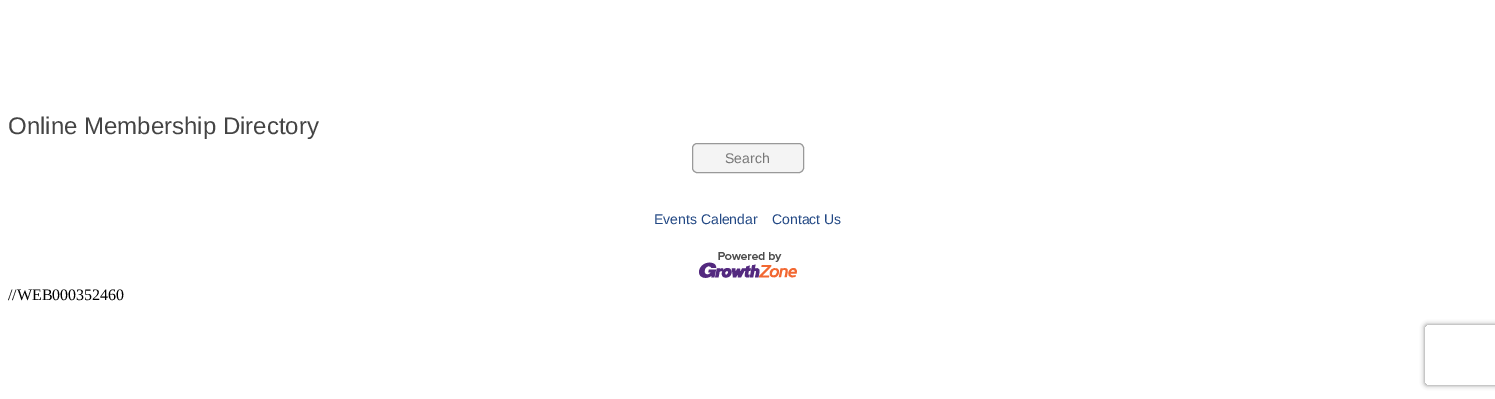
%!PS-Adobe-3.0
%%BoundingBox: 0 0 1495 399
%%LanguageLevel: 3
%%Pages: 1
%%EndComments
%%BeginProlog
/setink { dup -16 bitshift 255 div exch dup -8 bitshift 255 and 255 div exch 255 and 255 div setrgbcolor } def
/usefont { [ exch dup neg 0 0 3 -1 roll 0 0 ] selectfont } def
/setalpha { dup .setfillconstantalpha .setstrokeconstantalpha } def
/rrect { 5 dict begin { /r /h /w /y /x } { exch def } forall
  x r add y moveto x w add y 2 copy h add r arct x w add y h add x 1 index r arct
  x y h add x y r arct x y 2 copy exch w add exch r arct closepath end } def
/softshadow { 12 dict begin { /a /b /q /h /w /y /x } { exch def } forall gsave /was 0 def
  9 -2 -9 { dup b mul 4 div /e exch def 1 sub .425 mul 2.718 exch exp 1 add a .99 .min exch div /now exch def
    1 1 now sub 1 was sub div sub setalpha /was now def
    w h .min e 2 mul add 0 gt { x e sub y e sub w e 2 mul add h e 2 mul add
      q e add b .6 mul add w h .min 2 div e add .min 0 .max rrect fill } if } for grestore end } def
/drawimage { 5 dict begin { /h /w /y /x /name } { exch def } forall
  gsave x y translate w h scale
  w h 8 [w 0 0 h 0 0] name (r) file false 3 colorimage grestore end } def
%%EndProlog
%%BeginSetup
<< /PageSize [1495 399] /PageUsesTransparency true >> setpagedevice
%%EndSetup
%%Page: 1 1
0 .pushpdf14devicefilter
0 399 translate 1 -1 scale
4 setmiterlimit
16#FFFFFF setink
0 0 1495 399 rectfill
/LiberationSans-Regular 24 usefont
16#444444 setink
8 134 moveto (Online Membership Directory) show
16#F4F4F4 setink
692.5 143.5 111 29 4.5 rrect gsave fill grestore
16#999999 setink
stroke
/LiberationSans-Regular 14 usefont
16#777777 setink
725 163 moveto (Search) show
16#224884 setink
654 224 moveto (Events Calendar) show
772 224 moveto (Contact Us) show
(img1.raw) 699 252 98 26 drawimage
/LiberationSerif-Regular 16 usefont
16#000000 setink
8 300 moveto (//WEB000352460) show
gsave
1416 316 moveto 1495 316 lineto 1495 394 lineto 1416 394 lineto closepath 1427 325 moveto 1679 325 lineto 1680 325 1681 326 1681 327 curveto 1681 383 lineto 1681 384 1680 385 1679 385 curveto 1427 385 lineto 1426 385 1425 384 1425 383 curveto 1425 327 lineto 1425 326 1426 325 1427 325 curveto closepath eoclip newpath
16#808080 setink
1425 325 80 60 2 2.5 1 softshadow
grestore
.poppdf14devicefilter showpage
%%EOF
